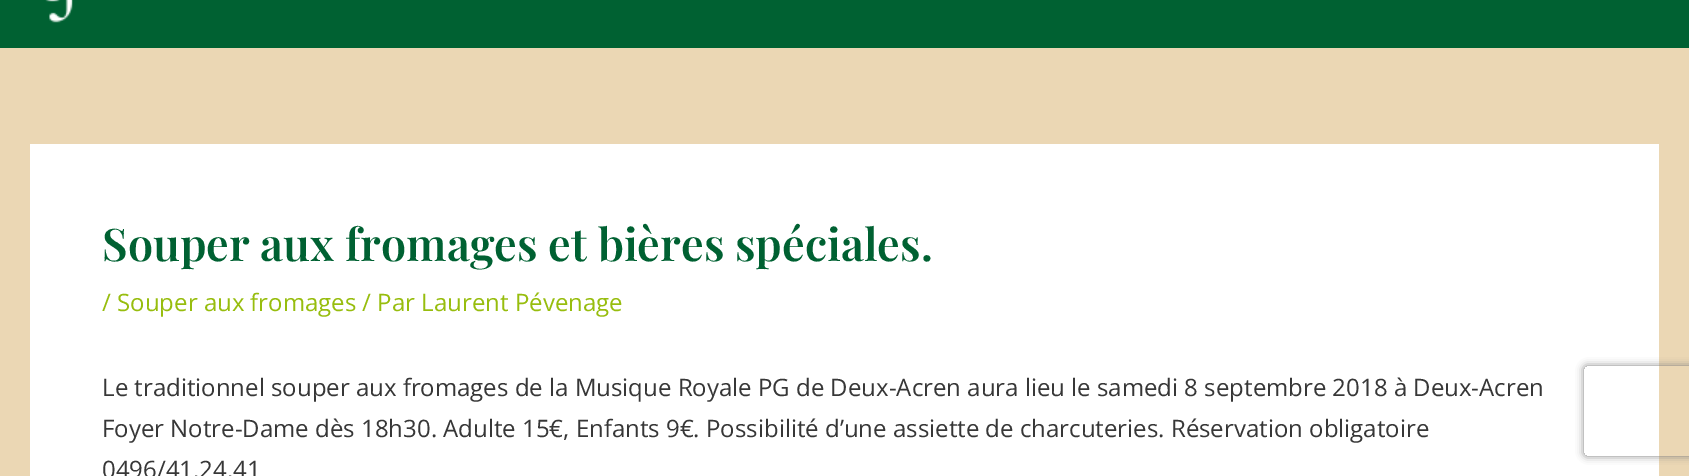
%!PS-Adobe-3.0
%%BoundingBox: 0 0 1689 476
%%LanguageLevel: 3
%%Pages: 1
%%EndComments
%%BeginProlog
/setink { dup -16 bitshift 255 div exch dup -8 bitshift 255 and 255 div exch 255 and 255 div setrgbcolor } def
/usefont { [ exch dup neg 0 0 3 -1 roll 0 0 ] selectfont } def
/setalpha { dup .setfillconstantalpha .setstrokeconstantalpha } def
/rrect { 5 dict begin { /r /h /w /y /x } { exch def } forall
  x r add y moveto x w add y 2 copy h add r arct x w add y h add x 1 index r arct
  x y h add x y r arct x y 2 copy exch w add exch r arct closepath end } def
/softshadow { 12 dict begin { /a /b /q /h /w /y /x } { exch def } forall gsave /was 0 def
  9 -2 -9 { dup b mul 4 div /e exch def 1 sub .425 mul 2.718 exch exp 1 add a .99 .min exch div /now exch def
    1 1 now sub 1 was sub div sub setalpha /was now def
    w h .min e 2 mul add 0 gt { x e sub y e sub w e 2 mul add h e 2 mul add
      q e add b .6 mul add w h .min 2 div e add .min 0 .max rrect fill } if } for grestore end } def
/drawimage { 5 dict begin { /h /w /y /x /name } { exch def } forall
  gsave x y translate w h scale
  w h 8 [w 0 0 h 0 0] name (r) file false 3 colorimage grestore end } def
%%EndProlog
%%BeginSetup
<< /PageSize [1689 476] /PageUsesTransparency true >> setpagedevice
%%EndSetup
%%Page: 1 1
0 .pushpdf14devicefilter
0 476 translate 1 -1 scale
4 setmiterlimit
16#EBD7B4 setink
0 0 1689 476 rectfill
16#006132 setink
0 0 1689 48 rectfill
(img1.raw) 45 0 28 23 drawimage
16#FFFFFF setink
30 144 1629 332 rectfill
/PlayfairDisplay-SemiBold 45 usefont
16#006132 setink
102 261 moveto (Souper aux fromages et bières spéciales.) show
/OpenSans-Regular 24 usefont
16#97BD0E setink
102 311 moveto (/ Souper aux fromages / Par Laurent Pévenage) show
16#373737 setink
[
    [(Le traditionnel souper aux fromages de la Musique Royale PG de Deux-Acren aura lieu le samedi 8 septembre 2018 à Deux-Acren) 102 396]
    [(Foyer Notre-Dame dès 18h30. Adulte 15€, Enfants 9€. Possibilité d’une assiette de charcuteries. Réservation obligatoire) 102 437]
    [(0496/41.24.41) 102 478]
] { aload pop moveto show } forall
gsave
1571 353 moveto 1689 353 lineto 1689 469 lineto 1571 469 lineto closepath 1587 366 moveto 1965 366 lineto 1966.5 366 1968 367.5 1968 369 curveto 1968 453 lineto 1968 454.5 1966.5 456 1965 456 curveto 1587 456 lineto 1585.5 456 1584 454.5 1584 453 curveto 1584 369 lineto 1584 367.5 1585.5 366 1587 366 curveto closepath eoclip newpath
16#808080 setink
1584 366 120 90 3 4 1 softshadow
grestore
.poppdf14devicefilter showpage
%%EOF
